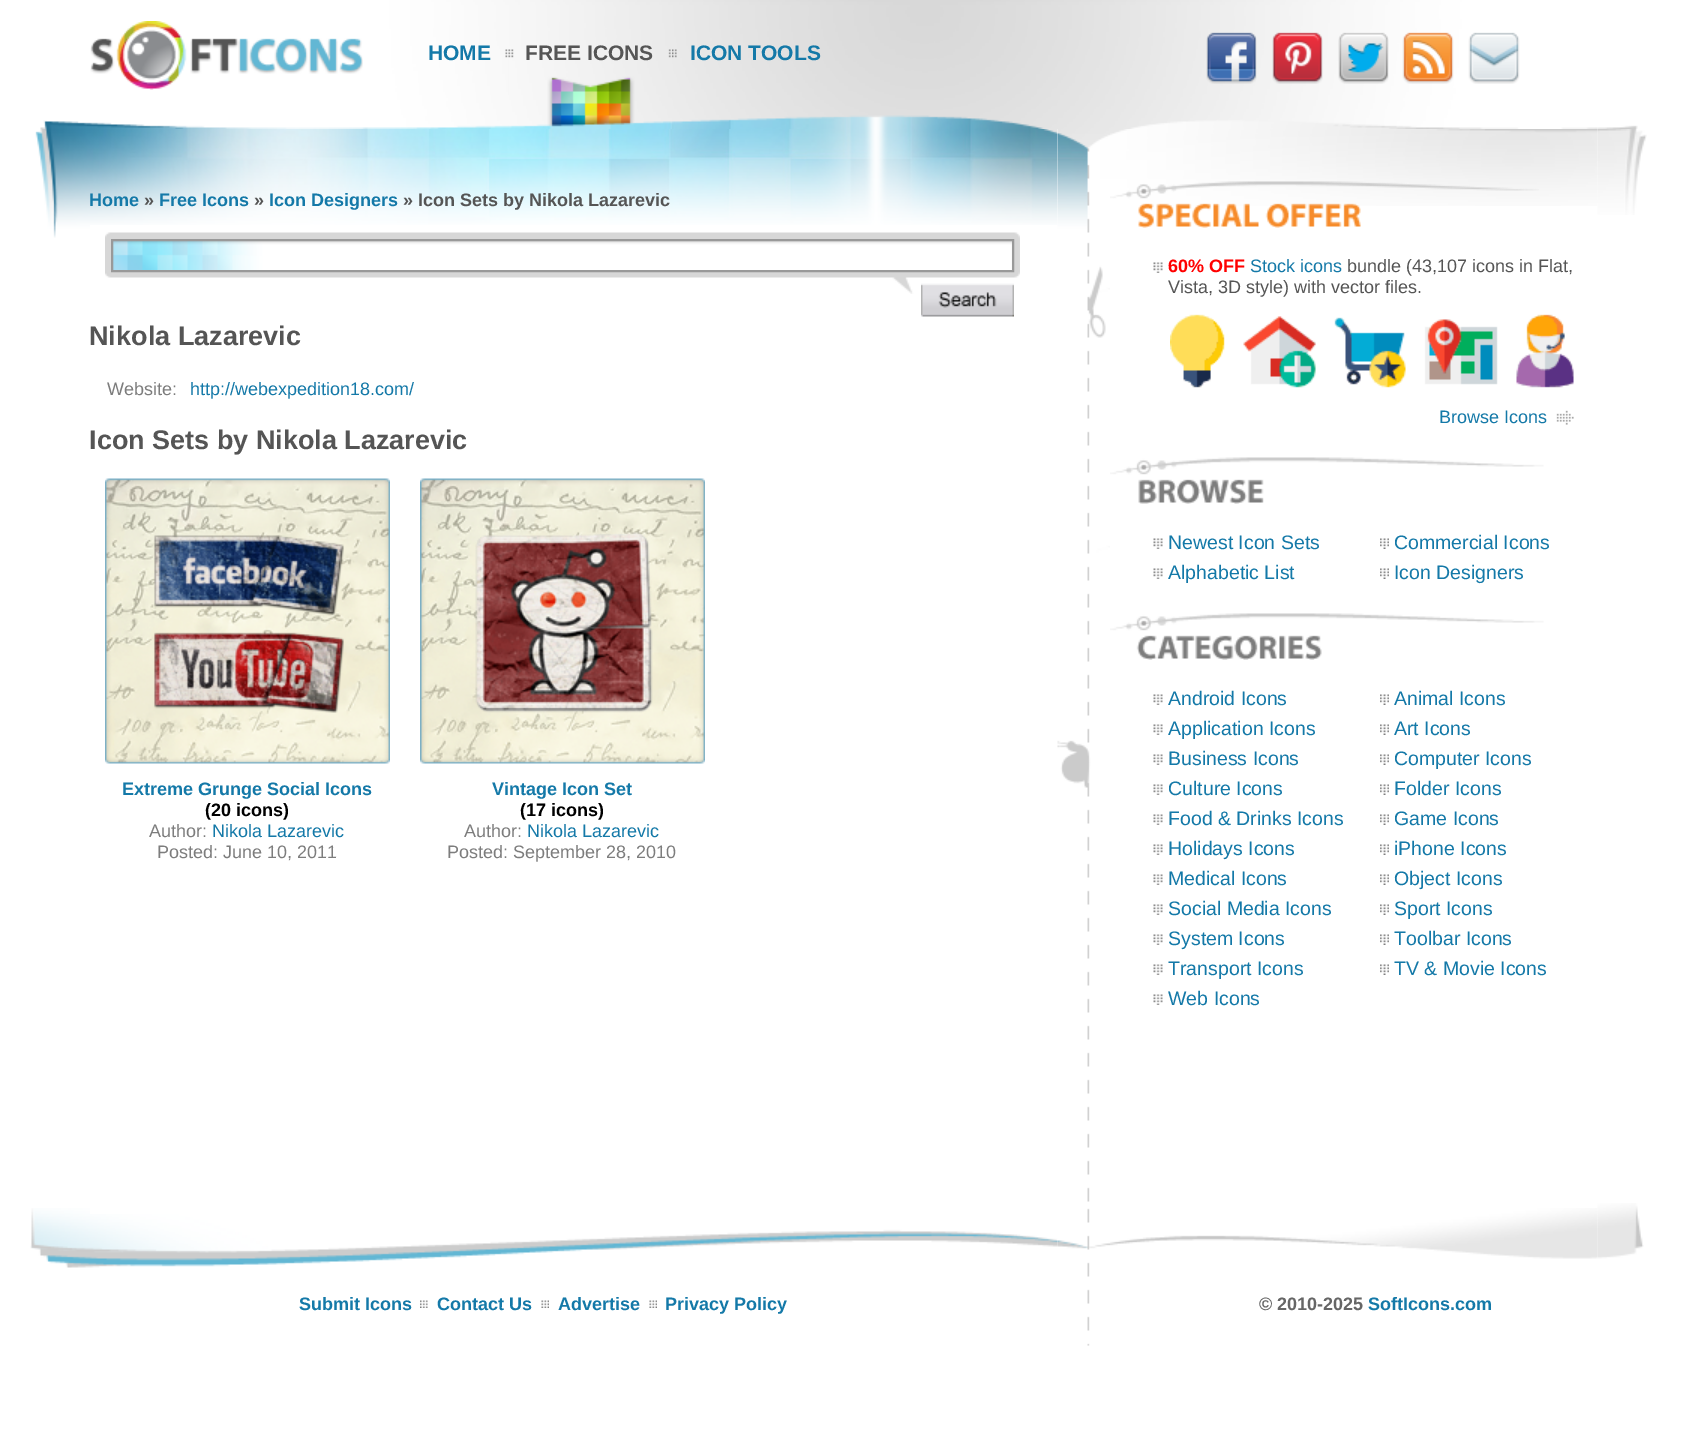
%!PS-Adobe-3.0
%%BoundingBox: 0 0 1686 1443
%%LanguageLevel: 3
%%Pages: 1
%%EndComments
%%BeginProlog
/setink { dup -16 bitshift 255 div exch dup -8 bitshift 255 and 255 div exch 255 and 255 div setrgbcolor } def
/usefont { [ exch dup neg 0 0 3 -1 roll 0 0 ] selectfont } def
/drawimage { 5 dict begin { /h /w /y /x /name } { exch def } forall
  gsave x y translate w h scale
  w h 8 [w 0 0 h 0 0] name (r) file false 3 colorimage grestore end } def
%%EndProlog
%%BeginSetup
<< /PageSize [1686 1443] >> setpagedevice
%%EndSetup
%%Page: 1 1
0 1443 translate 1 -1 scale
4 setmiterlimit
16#FFFFFF setink
0 0 1686 1443 rectfill
(img1.raw) 90 0 1508 129 drawimage
(img2.raw) 90 21 273 69 drawimage
(img3.raw) 415 49 93 80 drawimage
/LiberationSans-Bold 21 usefont
16#1479A8 setink
428 60 moveto (HOME) show
(img4.raw) 508 49 164 80 drawimage
16#555555 setink
525 60 moveto (FREE ICONS) show
(img5.raw) 672 49 162 80 drawimage
16#1479A8 setink
690 60 moveto (ICON TOOLS) show
(img6.raw) 1206 32 51 52 drawimage
(img7.raw) 1272 32 51 52 drawimage
(img8.raw) 1338 32 51 52 drawimage
(img9.raw) 1402 32 52 52 drawimage
(img10.raw) 1468 32 52 52 drawimage
(img11.raw) 40 120 50 9 drawimage
(img12.raw) 1597 125 41 4 drawimage
(img13.raw) 35 129 55 109 drawimage
(img17.raw) 90 129 968 96 drawimage
(img14.raw) 1057 129 53 1073 drawimage
(img15.raw) 1057 129 53 104 drawimage
(img25.raw) 1110 129 488 77 drawimage
(img16.raw) 1597 129 50 86 drawimage
/LiberationSans-Bold 18 usefont
89 206 moveto (Home) show
16#555555 setink
144 206 moveto (») show
16#1479A8 setink
159 206 moveto (Free Icons) show
16#555555 setink
254 206 moveto (») show
16#1479A8 setink
269 206 moveto (Icon Designers) show
16#555555 setink
403 206 moveto (» Icon Sets by Nikola Lazarevic) show
(img18.raw) 105 232 915 62 drawimage
(img19.raw) 113 241 899 29 drawimage
16#999999 setink
2 setlinewidth
112 240 901 31 rectstroke
(img20.raw) 921 283 93 34 drawimage
/LiberationSans-Bold 27 usefont
16#555555 setink
89 345 moveto (Nikola Lazarevic) show
/LiberationSans-Regular 18 usefont
16#7D7D7D setink
107 395 moveto (Website:) show
16#1479A8 setink
190 395 moveto (http://webexpedition18.com/) show
/LiberationSans-Bold 27 usefont
16#555555 setink
89 449 moveto (Icon Sets by Nikola Lazarevic) show
(img21.raw) 105 478 285 286 drawimage
(img22.raw) 154 535 190 178 drawimage
/LiberationSans-Bold 18 usefont
16#1479A8 setink
122 795 moveto (Extreme Grunge Social Icons) show
16#000000 setink
205 816 moveto (\(20 icons\)) show
/LiberationSans-Regular 18 usefont
16#7D7D7D setink
149 837 moveto (Author:) show
16#1479A8 setink
212 837 moveto (Nikola Lazarevic) show
16#7D7D7D setink
157 858 moveto (Posted: June 10, 2011) show
(img23.raw) 420 478 285 286 drawimage
(img24.raw) 475 532 178 181 drawimage
/LiberationSans-Bold 18 usefont
16#1479A8 setink
492 795 moveto (Vintage Icon Set) show
16#000000 setink
520 816 moveto (\(17 icons\)) show
/LiberationSans-Regular 18 usefont
16#7D7D7D setink
464 837 moveto (Author:) show
16#1479A8 setink
527 837 moveto (Nikola Lazarevic) show
16#7D7D7D setink
447 858 moveto (Posted: September 28, 2010) show
(img26.raw) 1110 181 429 47 drawimage
(img27.raw) 1153 262 10 11 drawimage
/LiberationSans-Bold 18 usefont
16#FF0000 setink
1168 272 moveto (60% OFF) show
/LiberationSans-Regular 18 usefont
16#1479A8 setink
1250 272 moveto (Stock icons) show
16#555555 setink
1347 272 moveto (bundle \(43,107 icons in Flat,) show
1168 293 moveto (Vista, 3D style\) with vector files.) show
(img28.raw) 1170 314 404 74 drawimage
16#1479A8 setink
1439 423 moveto (Browse Icons) show
(img29.raw) 1556 410 18 15 drawimage
(img30.raw) 1110 457 434 47 drawimage
(img27.raw) 1153 538 10 11 drawimage
/LiberationSans-Regular 19.5 usefont
1168 549 moveto (Newest Icon Sets) show
(img31.raw) 1380 538 9 11 drawimage
1394 549 moveto (Commercial Icons) show
(img27.raw) 1153 568 10 11 drawimage
1168 579 moveto (Alphabetic List) show
(img31.raw) 1380 568 9 11 drawimage
1394 579 moveto (Icon Designers) show
(img32.raw) 1110 613 434 47 drawimage
(img27.raw) 1153 694 10 11 drawimage
1168 705 moveto (Android Icons) show
(img31.raw) 1380 694 9 11 drawimage
1394 705 moveto (Animal Icons) show
(img27.raw) 1153 724 10 11 drawimage
1168 735 moveto (Application Icons) show
(img31.raw) 1380 724 9 11 drawimage
1394 735 moveto (Art Icons) show
(img27.raw) 1153 754 10 11 drawimage
1168 765 moveto (Business Icons) show
(img31.raw) 1380 754 9 11 drawimage
1394 765 moveto (Computer Icons) show
(img27.raw) 1153 784 10 11 drawimage
1168 795 moveto (Culture Icons) show
(img31.raw) 1380 784 9 11 drawimage
1394 795 moveto (Folder Icons) show
(img27.raw) 1153 814 10 11 drawimage
1168 825 moveto (Food & Drinks Icons) show
(img31.raw) 1380 814 9 11 drawimage
1394 825 moveto (Game Icons) show
(img27.raw) 1153 844 10 11 drawimage
1168 855 moveto (Holidays Icons) show
(img31.raw) 1380 844 9 11 drawimage
1394 855 moveto (iPhone Icons) show
(img27.raw) 1153 874 10 11 drawimage
1168 885 moveto (Medical Icons) show
(img31.raw) 1380 874 9 11 drawimage
1394 885 moveto (Object Icons) show
(img27.raw) 1153 904 10 11 drawimage
1168 915 moveto (Social Media Icons) show
(img31.raw) 1380 904 9 11 drawimage
1394 915 moveto (Sport Icons) show
(img27.raw) 1153 934 10 11 drawimage
1168 945 moveto (System Icons) show
(img31.raw) 1380 934 9 11 drawimage
1394 945 moveto (Toolbar Icons) show
(img27.raw) 1153 964 10 11 drawimage
1168 975 moveto (Transport Icons) show
(img31.raw) 1380 964 9 11 drawimage
1394 975 moveto (TV & Movie Icons) show
(img27.raw) 1153 994 10 11 drawimage
1168 1005 moveto (Web Icons) show
(img33.raw) 30 1208 60 60 drawimage
(img34.raw) 90 1214 968 54 drawimage
/LiberationSans-Bold 18 usefont
299 1310 moveto (Submit Icons) show
(img35.raw) 420 1300 8 8 drawimage
437 1310 moveto (Contact Us) show
(img36.raw) 541 1300 8 8 drawimage
558 1310 moveto (Advertise) show
(img36.raw) 649 1300 8 8 drawimage
665 1310 moveto (Privacy Policy) show
(img37.raw) 1057 1208 53 138 drawimage
(img38.raw) 1110 1208 488 51 drawimage
16#666666 setink
1259 1310 moveto (© 2010-2025) show
16#1479A8 setink
1368 1310 moveto (SoftIcons.com) show
(img39.raw) 1597 1203 47 56 drawimage
showpage
%%EOF
